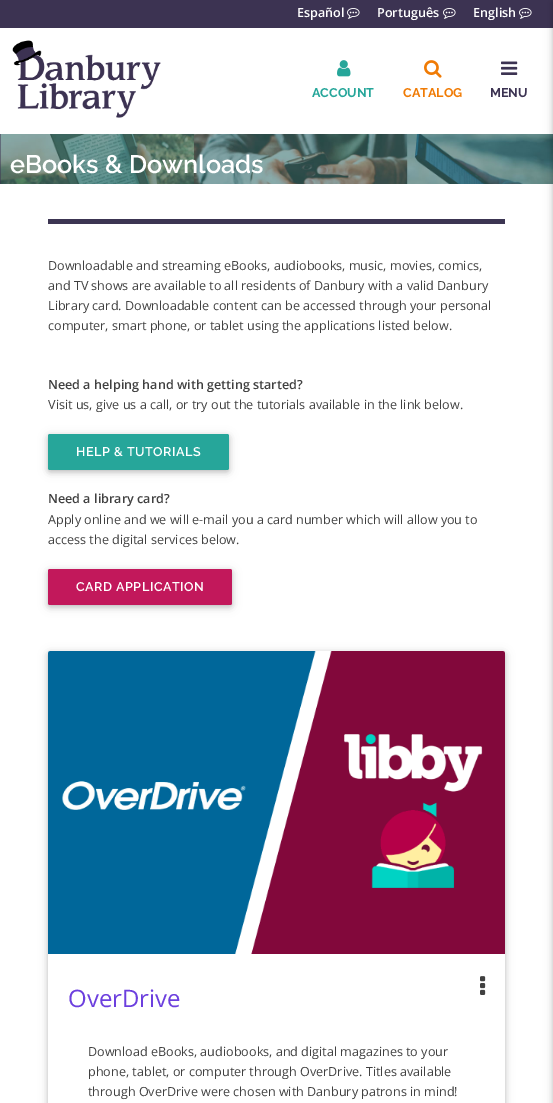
%!PS-Adobe-3.0
%%BoundingBox: 0 0 553 1103
%%LanguageLevel: 3
%%Pages: 1
%%EndComments
%%BeginProlog
/setink { dup -16 bitshift 255 div exch dup -8 bitshift 255 and 255 div exch 255 and 255 div setrgbcolor } def
/usefont { [ exch dup neg 0 0 3 -1 roll 0 0 ] selectfont } def
/setalpha { dup .setfillconstantalpha .setstrokeconstantalpha } def
/rrect { 5 dict begin { /r /h /w /y /x } { exch def } forall
  x r add y moveto x w add y 2 copy h add r arct x w add y h add x 1 index r arct
  x y h add x y r arct x y 2 copy exch w add exch r arct closepath end } def
/softshadow { 12 dict begin { /a /b /q /h /w /y /x } { exch def } forall gsave /was 0 def
  9 -2 -9 { dup b mul 4 div /e exch def 1 sub .425 mul 2.718 exch exp 1 add a .99 .min exch div /now exch def
    1 1 now sub 1 was sub div sub setalpha /was now def
    w h .min e 2 mul add 0 gt { x e sub y e sub w e 2 mul add h e 2 mul add
      q e add b .6 mul add w h .min 2 div e add .min 0 .max rrect fill } if } for grestore end } def
/drawimage { 5 dict begin { /h /w /y /x /name } { exch def } forall
  gsave x y translate w h scale
  w h 8 [w 0 0 h 0 0] name (r) file false 3 colorimage grestore end } def
%%EndProlog
%%BeginSetup
<< /PageSize [553 1103] /PageUsesTransparency true >> setpagedevice
%%EndSetup
%%Page: 1 1
0 .pushpdf14devicefilter
0 1103 translate 1 -1 scale
4 setmiterlimit
16#FFFFFF setink
0 0 553 1103 rectfill
16#3C3352 setink
0 0 553 28 rectfill
/OpenSans-SemiBold 12.6 usefont
16#FFFFFF setink
297 17 moveto (Español) show
(img1.raw) 347 8 13 11 drawimage
377 17 moveto (Português) show
(img1.raw) 443 8 13 11 drawimage
473 17 moveto (English) show
(img1.raw) 519 8 13 11 drawimage
(img2.raw) 12 40 149 78 drawimage
(img3.raw) 337 60 14 17 drawimage
/Raleway-Bold 12.6 usefont
16#26A69A setink
312 97 moveto (ACCOUNT) show
(img4.raw) 424 60 18 18 drawimage
16#F07B05 setink
403 97 moveto (CATALOG) show
(img5.raw) 501 61 17 14 drawimage
16#3C3352 setink
490 97 moveto (MENU) show
0 134 1 50 rectfill
(img6.raw) 0 134 553 50 drawimage
16#000000 setink
553 2 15 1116 0 5 0.12 softshadow
553 2 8 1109 0 2.5 0.16 softshadow
/Raleway-SemiBold 25.25 usefont
16#FFFFFF setink
10 173 moveto (eBooks & Downloads) show
16#3C3552 setink
48 219 457 5 rectfill
/OpenSans-Regular 12.6 usefont
16#404040 setink
[
    [(Downloadable and streaming eBooks, audiobooks, music, movies, comics,) 48 270]
    [(and TV shows are available to all residents of Danbury with a valid Danbury) 48 290]
    [(Library card. Downloadable content can be accessed through your personal) 48 310]
    [(computer, smart phone, or tablet using the applications listed below.) 48 330]
] { aload pop moveto show } forall
/OpenSans-SemiBold 12.6 usefont
48 389 moveto (Need a helping hand with getting started?) show
/OpenSans-Regular 12.6 usefont
48 409 moveto (Visit us, give us a call, or try out the tutorials available in the link below.) show
16#000000 setink
48 436 181 36 2 5 0.12 softshadow
48 436 181 36 2 2.5 0.16 softshadow
16#26A69A setink
48 434 181 36 2 rrect fill
/Raleway-SemiBold 12.6 usefont
16#FFFFFF setink
76 456 moveto 0.5 0 (HELP & TUTORIALS) ashow
/OpenSans-SemiBold 12.6 usefont
16#404040 setink
48 503 moveto (Need a library card?) show
/OpenSans-Regular 12.6 usefont
48 524 moveto (Apply online and we will e-mail you a card number which will allow you to) show
48 544 moveto (access the digital services below.) show
16#000000 setink
48 571 184 36 2 5 0.12 softshadow
48 571 184 36 2 2.5 0.16 softshadow
16#C2185B setink
48 569 184 36 2 rrect fill
/Raleway-SemiBold 12.6 usefont
16#FFFFFF setink
76 591 moveto 0.5 0 (CARD APPLICATION) ashow
16#000000 setink
48 653 457 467 2 5 0.12 softshadow
48 653 457 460 2 2.5 0.16 softshadow
16#FFFFFF setink
48 651 457 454 2 rrect fill
(img7.raw) 48 651 457 303 drawimage
(img8.raw) 480 976 6 19 drawimage
/OpenSans-Regular 24 usefont
16#6C3FDE setink
68 1007 moveto (OverDrive) show
/OpenSans-Regular 12.6 usefont
16#404040 setink
[
    [(Download eBooks, audiobooks, and digital magazines to your) 88 1056]
    [(phone, tablet, or computer through OverDrive. Titles available) 88 1076]
    [(through OverDrive were chosen with Danbury patrons in mind!) 88 1096]
] { aload pop moveto show } forall
.poppdf14devicefilter showpage
%%EOF
